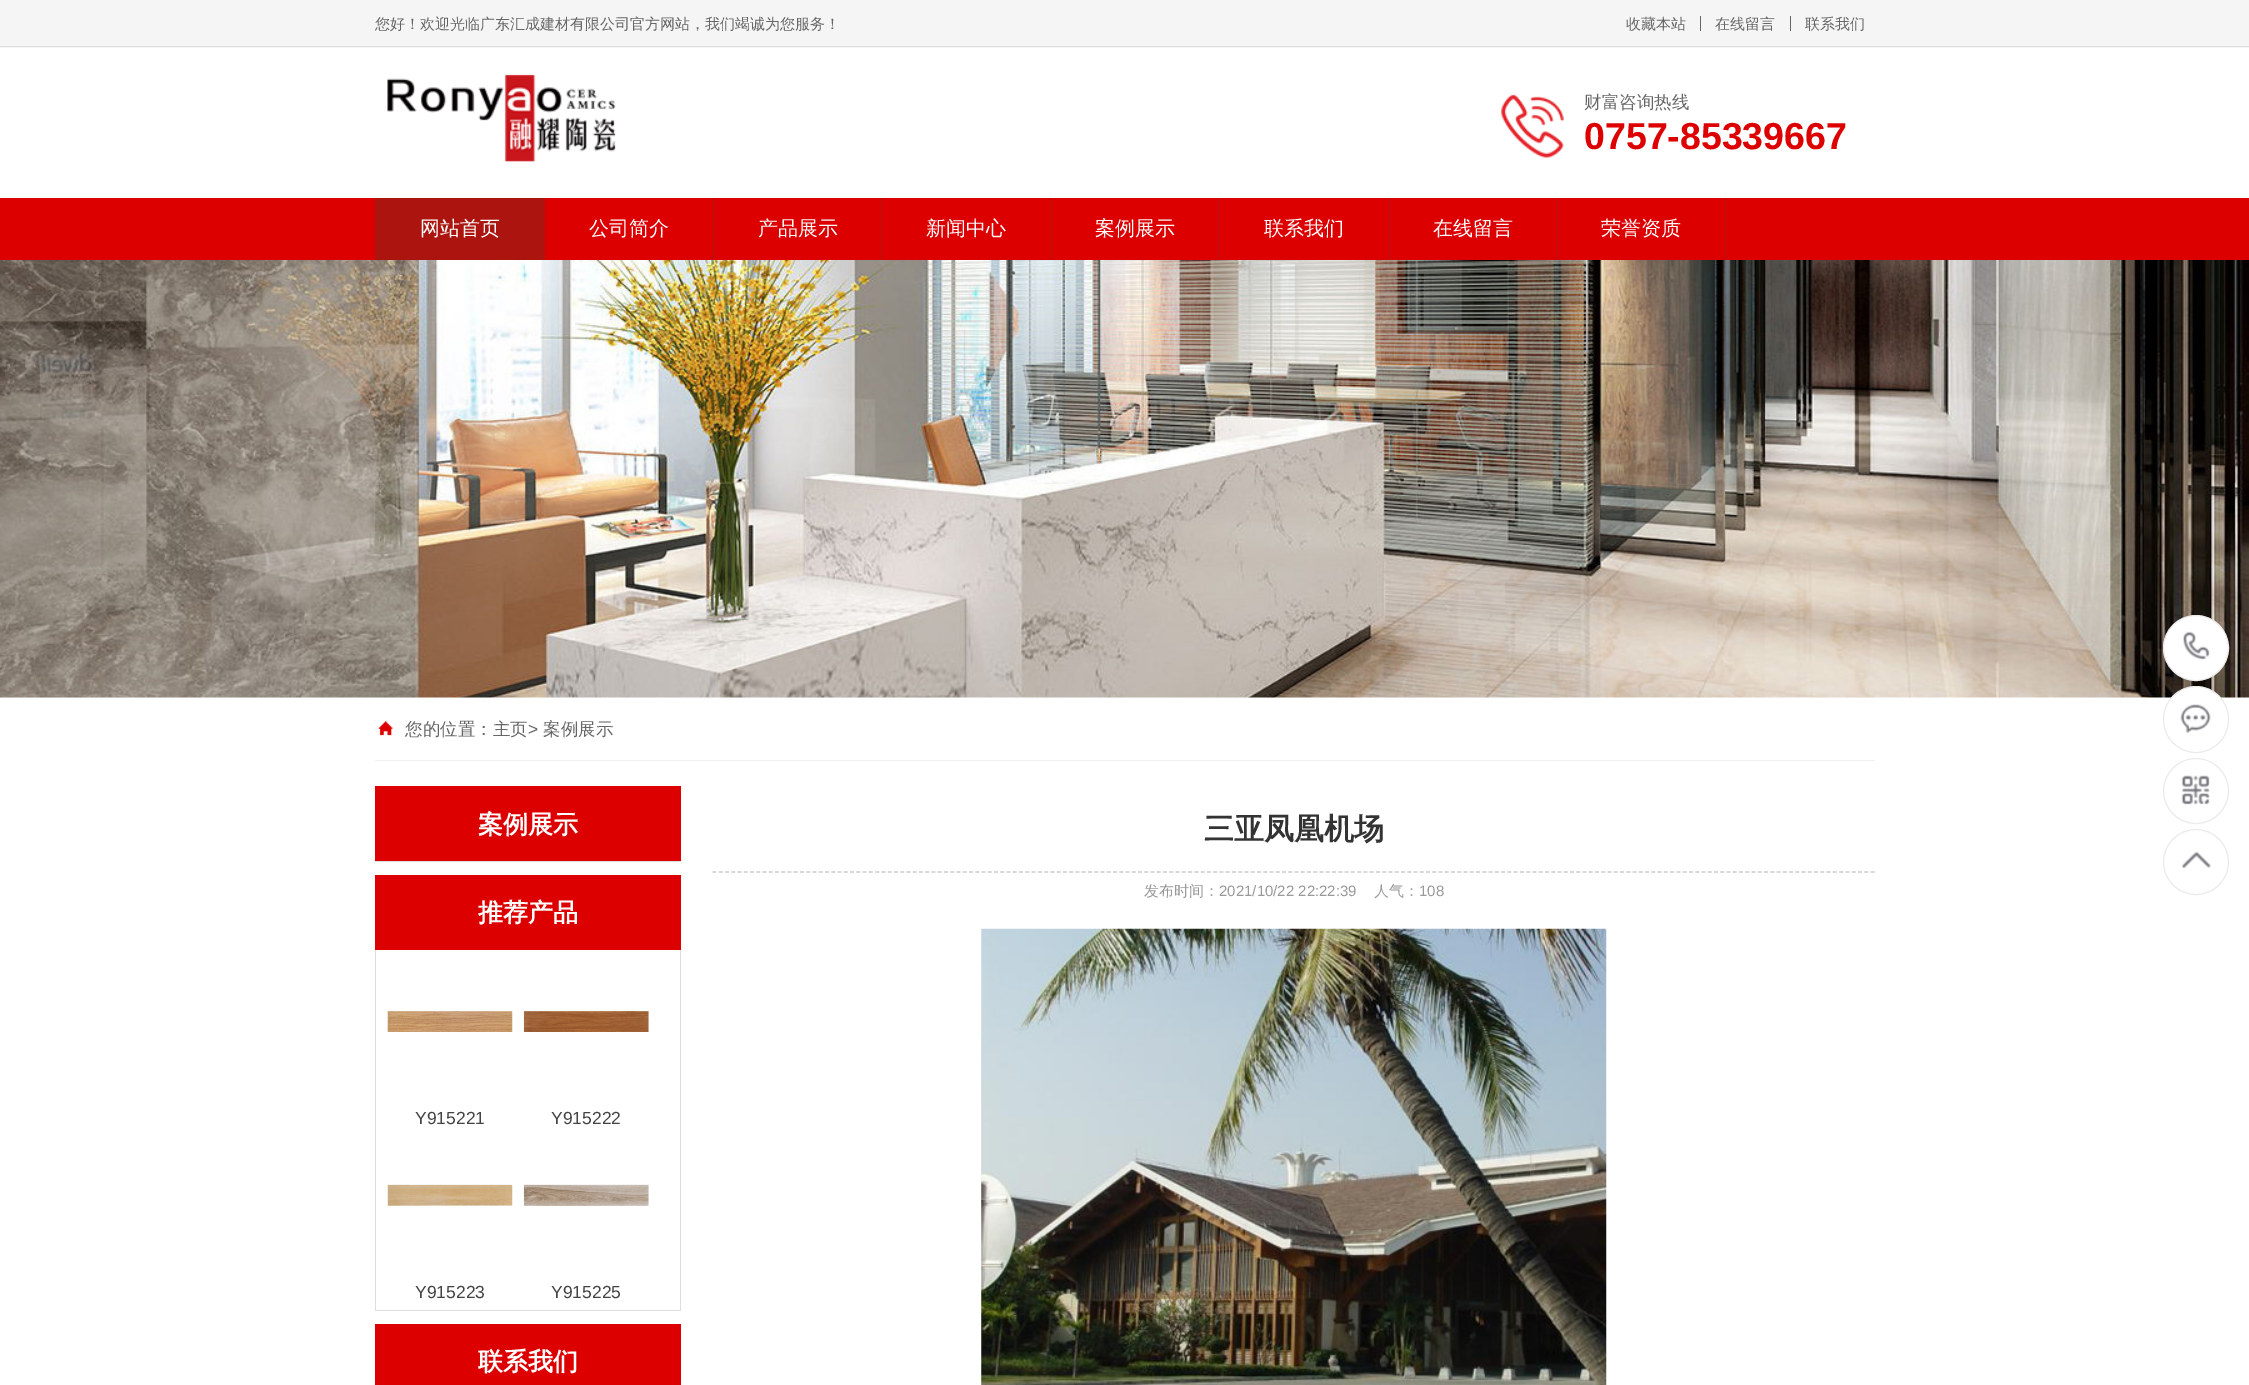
%!PS-Adobe-3.0
%%BoundingBox: 0 0 2249 1385
%%LanguageLevel: 3
%%Pages: 1
%%EndComments
%%BeginProlog
/setink { dup -16 bitshift 255 div exch dup -8 bitshift 255 and 255 div exch 255 and 255 div setrgbcolor } def
/usefont { [ exch dup neg 0 0 3 -1 roll 0 0 ] selectfont } def
/disc { newpath 0 360 arc closepath } def
/rrect { 5 dict begin { /r /h /w /y /x } { exch def } forall
  x r add y moveto x w add y 2 copy h add r arct x w add y h add x 1 index r arct
  x y h add x y r arct x y 2 copy exch w add exch r arct closepath end } def
/drawimage { 5 dict begin { /h /w /y /x /name } { exch def } forall
  gsave x y translate w h scale
  w h 8 [w 0 0 h 0 0] name (r) file false 3 colorimage grestore end } def
%%EndProlog
%%BeginSetup
<< /PageSize [2249 1385] >> setpagedevice
%%EndSetup
%%Page: 1 1
0 1385 translate 1 -1 scale
4 setmiterlimit
16#FFFFFF setink
0 0 2249 1385 rectfill
16#F5F5F5 setink
0 0 2249 48 rectfill
16#DDDDDD setink
0 46 2249 1 rectfill
/WenQuanYiZenHei-Medium 15 usefont
16#666666 setink
375 29 moveto (您好！欢迎光临广东汇成建材有限公司官方网站，我们竭诚为您服务！) show
1626 29 moveto (收藏本站) show
1700 16 1 15 rectfill
1715 29 moveto (在线留言) show
1790 16 1 15 rectfill
1805 29 moveto (联系我们) show
(img1.raw) 387 74 229 88 drawimage
(img2.raw) 1501 94 63 64 drawimage
/WenQuanYiZenHei-Medium 17.5 usefont
1584 108 moveto (财富咨询热线) show
/LiberationSans-Bold 37.5 usefont
16#DC0000 setink
1584 149 moveto (0757-85339667) show
0 198 2249 62 rectfill
16#AC140F setink
375 198 170 62 rectfill
/WenQuanYiZenHei-Medium 20 usefont
16#FFFFFF setink
420 235 moveto (网站首页) show
16#AC140F setink
713 198 1 62 rectfill
16#FFFFFF setink
589 235 moveto (公司简介) show
16#AC140F setink
881 198 1 62 rectfill
16#FFFFFF setink
758 235 moveto (产品展示) show
16#AC140F setink
1050 198 1 62 rectfill
16#FFFFFF setink
926 235 moveto (新闻中心) show
16#AC140F setink
1219 198 1 62 rectfill
16#FFFFFF setink
1095 235 moveto (案例展示) show
16#AC140F setink
1388 198 1 62 rectfill
16#FFFFFF setink
1264 235 moveto (联系我们) show
16#AC140F setink
1556 198 1 62 rectfill
16#FFFFFF setink
1433 235 moveto (在线留言) show
16#AC140F setink
1725 198 1 62 rectfill
16#FFFFFF setink
1601 235 moveto (荣誉资质) show
(img3.raw) 0 260 2249 438 drawimage
16#F1F1F1 setink
375 760 1500 1 rectfill
(img4.raw) 378 721 15 15 drawimage
/WenQuanYiZenHei-Medium 17.5 usefont
16#666666 setink
405 735 moveto (您的位置：主页) show
/LiberationSans-Regular 17.5 usefont
528 735 moveto (>) show
/WenQuanYiZenHei-Medium 17.5 usefont
543 735 moveto (案例展示) show
16#DC0000 setink
375 786 306 75 rectfill
/WenQuanYiZenHei-Bold 25 usefont
16#FFFFFF setink
478 833 moveto (案例展示) show
16#DDDDDD setink
375 861 306 1 rectfill
16#DC0000 setink
375 875 306 75 rectfill
16#FFFFFF setink
478 921 moveto (推荐产品) show
[
    [680 950 1 361 16#DDDDDD]
    [375 1310 306 1 16#DDDDDD]
    [375 950 1 361 16#DDDDDD]
] { aload pop setink rectfill } forall
(img5.raw) 387 1011 126 21 drawimage
/LiberationSans-Regular 17.5 usefont
16#434343 setink
415 1124 moveto (Y915221) show
(img6.raw) 523 1011 126 21 drawimage
551 1124 moveto (Y915222) show
(img7.raw) 387 1184 126 22 drawimage
415 1298 moveto (Y915223) show
(img8.raw) 523 1184 126 22 drawimage
551 1298 moveto (Y915225) show
16#DC0000 setink
375 1324 306 61 rectfill
/WenQuanYiZenHei-Bold 25 usefont
16#FFFFFF setink
478 1370 moveto (联系我们) show
16#CCCCCC setink
1.2 setlinewidth
[3.75 2.51] 0 setdash
712.5 872 moveto 1875 872 lineto stroke
/WenQuanYiZenHei-Bold 30 usefont
16#333333 setink
1204 839 moveto (三亚凤凰机场) show
/WenQuanYiZenHei-Medium 15 usefont
16#999999 setink
1144 896 moveto (发布时间：) show
/LiberationSans-Regular 15 usefont
1219 896 moveto (2021/10/22 22:22:39) show
/WenQuanYiZenHei-Medium 15 usefont
1374 896 moveto (人气：) show
/LiberationSans-Regular 15 usefont
1419 896 moveto (108) show
(img9.raw) 981 928 626 457 drawimage
16#FFFFFF setink
2196 648 32.5 disc gsave fill grestore
16#EBEBEB setink
1 setlinewidth
[] 0 setdash
stroke
(img10.raw) 2183 631 27 29 drawimage
16#FFFFFF setink
2163.5 686.5 65 66 32.5 rrect gsave fill grestore
16#EBEBEB setink
stroke
(img11.raw) 2180 704 31 29 drawimage
2196 791 32.5 disc stroke
(img12.raw) 2181 775 29 30 drawimage
2196 862 32.5 disc stroke
(img13.raw) 2181 851 30 17 drawimage
showpage
%%EOF
